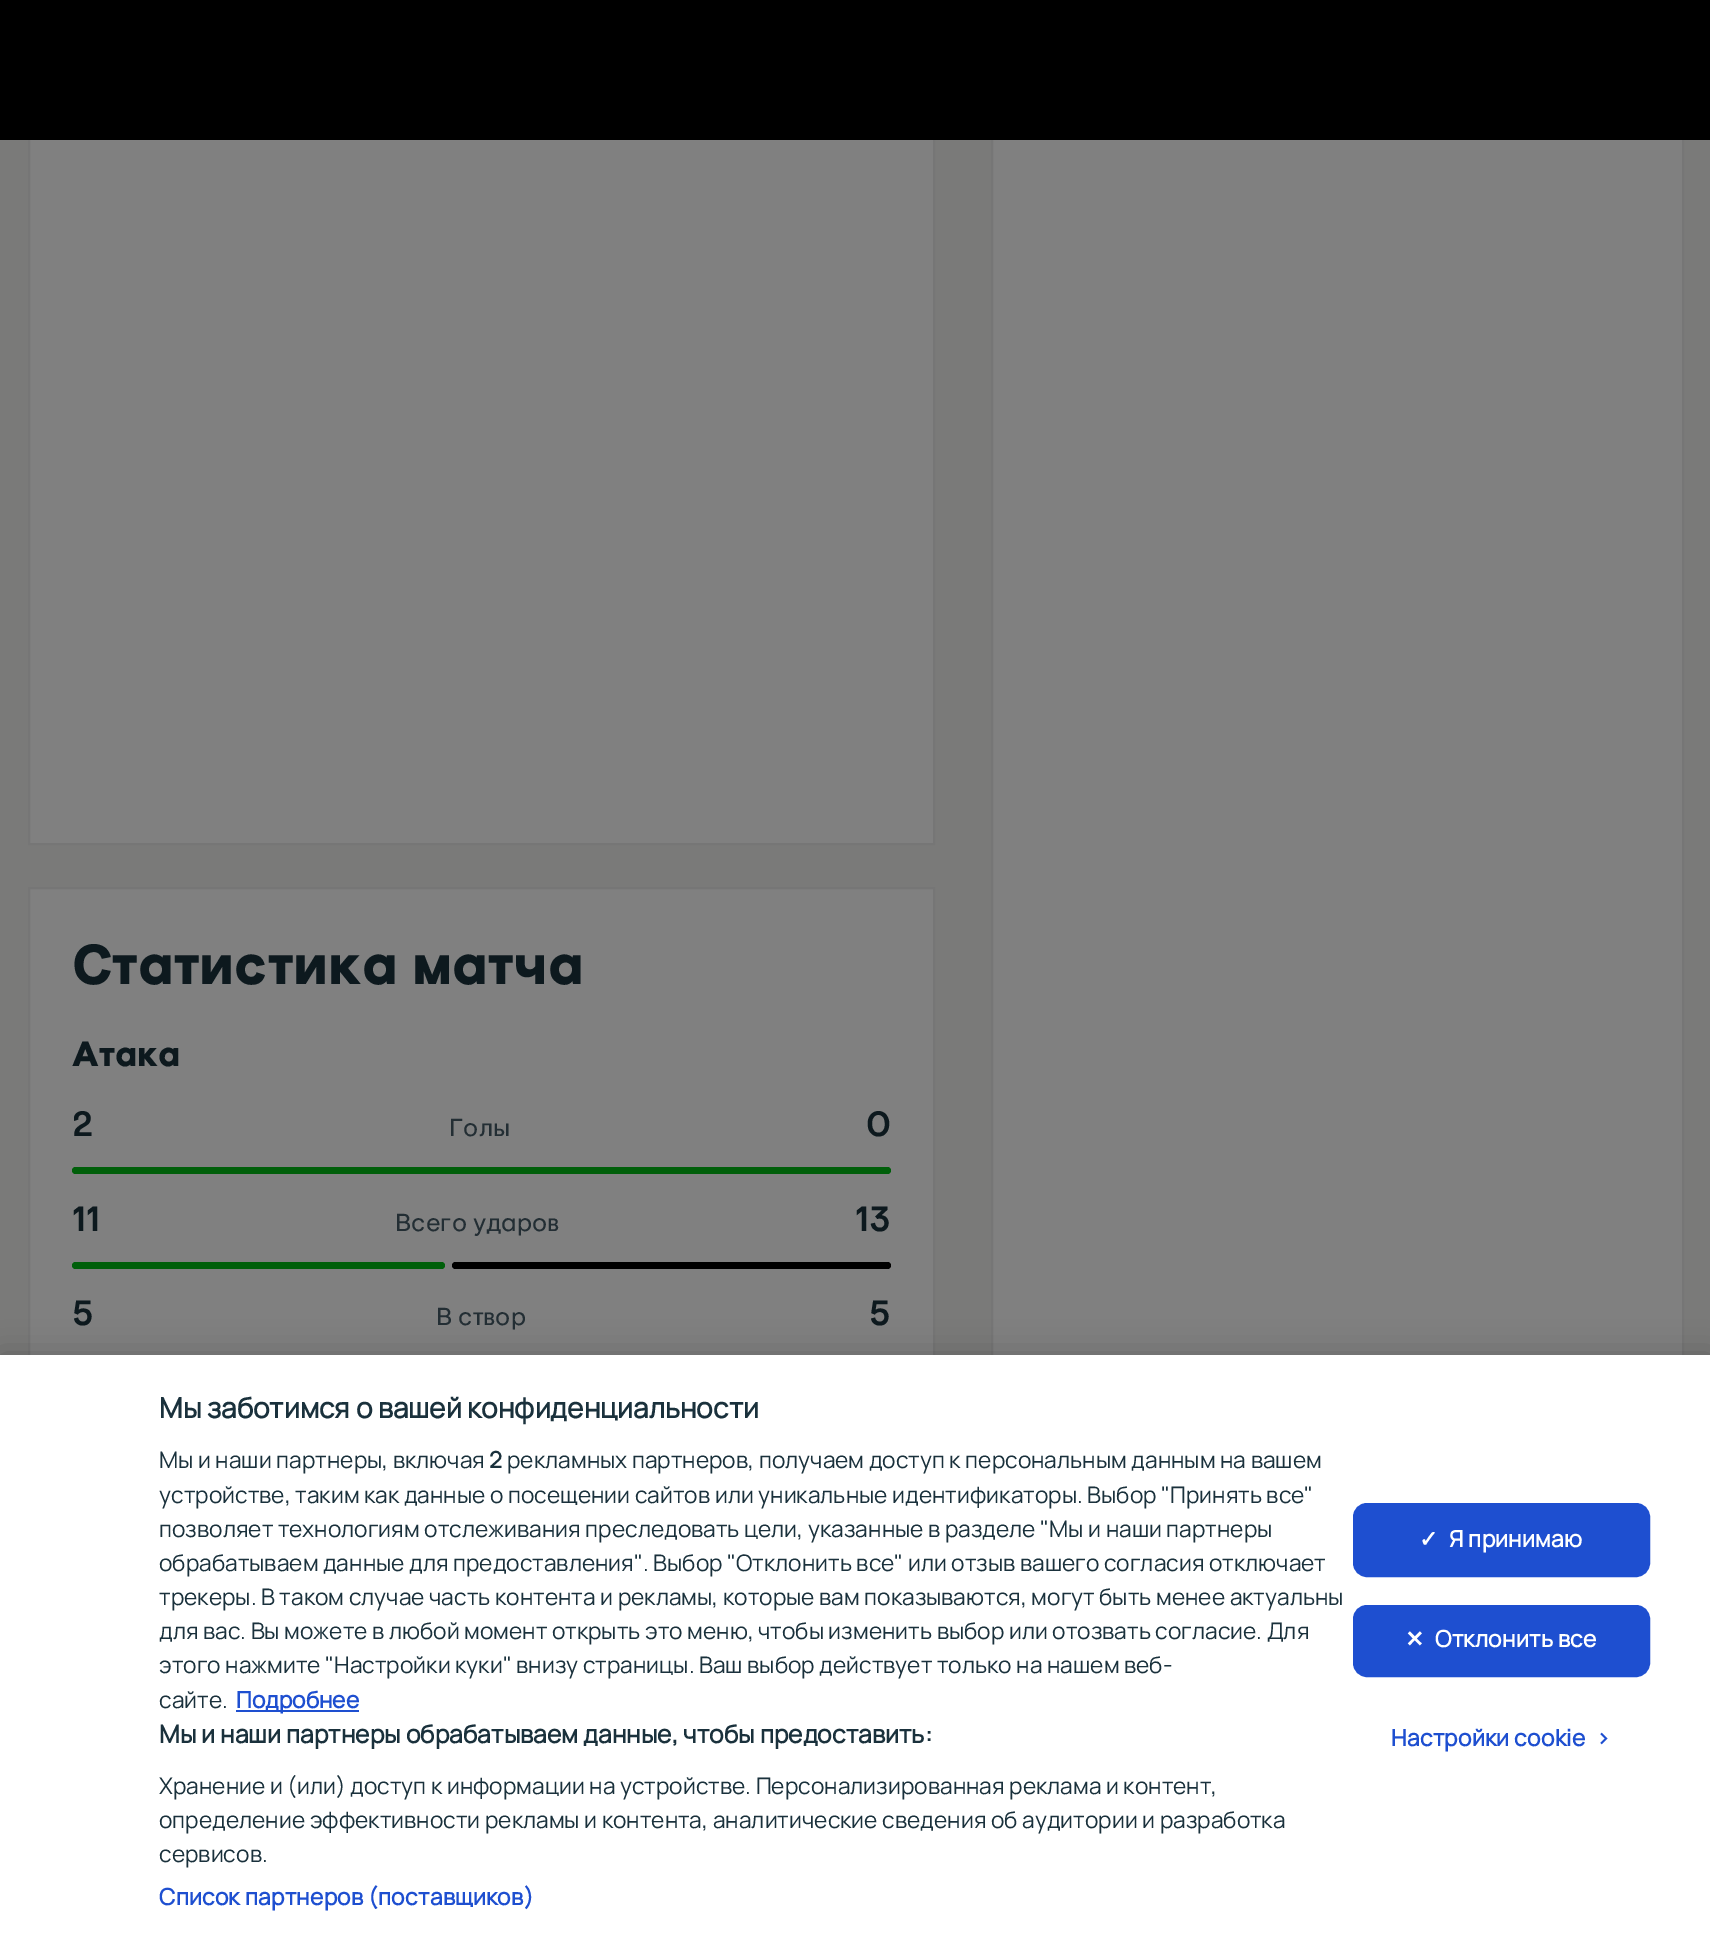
%!PS-Adobe-3.0
%%BoundingBox: 0 0 1710 1948
%%LanguageLevel: 3
%%Pages: 1
%%EndComments
%%BeginProlog
/setink { dup -16 bitshift 255 div exch dup -8 bitshift 255 and 255 div exch 255 and 255 div setrgbcolor } def
/usefont { [ exch dup neg 0 0 3 -1 roll 0 0 ] selectfont } def
/setalpha { dup .setfillconstantalpha .setstrokeconstantalpha } def
/rrect { 5 dict begin { /r /h /w /y /x } { exch def } forall
  x r add y moveto x w add y 2 copy h add r arct x w add y h add x 1 index r arct
  x y h add x y r arct x y 2 copy exch w add exch r arct closepath end } def
/softshadow { 12 dict begin { /a /b /q /h /w /y /x } { exch def } forall gsave /was 0 def
  9 -2 -9 { dup b mul 4 div /e exch def 1 sub .425 mul 2.718 exch exp 1 add a .99 .min exch div /now exch def
    1 1 now sub 1 was sub div sub setalpha /was now def
    w h .min e 2 mul add 0 gt { x e sub y e sub w e 2 mul add h e 2 mul add
      q e add b .6 mul add w h .min 2 div e add .min 0 .max rrect fill } if } for grestore end } def
%%EndProlog
%%BeginSetup
<< /PageSize [1710 1948] /PageUsesTransparency true >> setpagedevice
%%EndSetup
%%Page: 1 1
0 .pushpdf14devicefilter
0 1948 translate 1 -1 scale
4 setmiterlimit
16#7A7A79 setink
0 0 1710 1948 rectfill
16#808080 setink
30 140 903 703 rectfill
16#767676 setink
2 setlinewidth
29 -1 905 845 rectstroke
16#808080 setink
993 140 689 1215 rectfill
16#767676 setink
992 -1 691 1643 rectstroke
16#000000 setink
0 0 1710 140 rectfill
16#808080 setink
30 889 903 466 rectfill
16#767676 setink
29 888 905 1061 rectstroke
/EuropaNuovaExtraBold-ExtraBold 56 usefont
16#0D191E setink
72 984 moveto (Статистика матча) show
/EuropaNuovaExtraBold-ExtraBold 35 usefont
72 1066 moveto (Атака) show
/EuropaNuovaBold-Bold 35 usefont
72 1136 moveto (2) show
/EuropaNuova-Regular 24.5 usefont
16#232E34 setink
449 1136 moveto (Голы) show
/EuropaNuovaBold-Bold 35 usefont
16#0D191E setink
866 1136 moveto (0) show
16#005F0A setink
72 1167 819 7 3.5 rrect fill
16#0D191E setink
72 1231 moveto (11) show
/EuropaNuova-Regular 24.5 usefont
16#232E34 setink
395 1231 moveto (Всего ударов) show
/EuropaNuovaBold-Bold 35 usefont
16#0D191E setink
855 1231 moveto (13) show
16#005F0A setink
72 1262 373 7 3.5 rrect fill
16#000000 setink
452 1262 439 7 3.5 rrect fill
16#0D191E setink
72 1325 moveto (5) show
/EuropaNuova-Regular 24.5 usefont
16#232E34 setink
436 1325 moveto (В створ) show
/EuropaNuovaBold-Bold 35 usefont
16#0D191E setink
869 1325 moveto (5) show
16#000000 setink
0 1355 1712 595 0 16 0.2 softshadow
16#FFFFFF setink
0 1355 1710 593 rectfill
/Manrope-Bold 28 usefont
16#1A313C setink
159 1418 moveto (Мы заботимся о вашей конфиденциальности) show
/Manrope-Regular 22.75 usefont
159 1468 moveto (Мы и наши партнеры, включая) show
/Manrope-Bold 22.75 usefont
489 1468 moveto (2) show
/Manrope-Regular 22.75 usefont
[
    [(рекламных партнеров, получаем доступ к персональным данным на вашем) 507 1468]
    [(устройстве, таким как данные о посещении сайтов или уникальные идентификаторы. Выбор "Принять все") 159 1503]
    [(позволяет технологиям отслеживания преследовать цели, указанные в разделе "Мы и наши партнеры) 159 1537]
    [(обрабатываем данные для предоставления". Выбор "Отклонить все" или отзыв вашего согласия отключает) 159 1571]
    [(трекеры. В таком случае часть контента и рекламы, которые вам показываются, могут быть менее актуальны) 159 1605]
    [(для вас. Вы можете в любой момент открыть это меню, чтобы изменить выбор или отозвать согласие. Для) 159 1639]
    [(этого нажмите "Настройки куки" внизу страницы. Ваш выбор действует только на нашем веб-) 159 1673]
    [(сайте.) 159 1708]
] { aload pop moveto show } forall
16#1E4FD0 setink
236 1710 123 2 rectfill
/Manrope-Bold 22.75 usefont
236 1708 moveto (Подробнее) show
/Manrope-Bold 24.65 usefont
16#1A313C setink
159 1743 moveto (Мы и наши партнеры обрабатываем данные, чтобы предоставить:) show
/Manrope-Regular 22.75 usefont
[
    [(Хранение и \(или\) доступ к информации на устройстве. Персонализированная реклама и контент,) 159 1794]
    [(определение эффективности рекламы и контента, аналитические сведения об аудитории и разработка) 159 1828]
    [(сервисов.) 159 1862]
] { aload pop moveto show } forall
/Manrope-Bold 22.75 usefont
16#1E4FD0 setink
159 1905 moveto 0.25 0 (Список партнеров \(поставщиков\)) ashow
1354 1504 295 72 13 rrect gsave fill grestore
stroke
/DejaVuSans-Bold 22.75 usefont
16#FFFFFF setink
1419 1547 moveto 0.25 0 (✓) ashow
/Manrope-Bold 22.75 usefont
1449 1547 moveto 0.25 0 (Я принимаю) ashow
16#1E4FD0 setink
1354 1606 295 70 13 rrect gsave fill grestore
stroke
/DejaVuSans-Bold 22.75 usefont
16#FFFFFF setink
1405 1647 moveto 0.25 0 (✕) ashow
/Manrope-Bold 22.75 usefont
1435 1647 moveto 0.25 0 (Отклонить все) ashow
16#1E4FD0 setink
1391 1746 moveto 0.25 0 (Настройки cookie) ashow
1596 1746 moveto 0.25 0 (>) ashow
.poppdf14devicefilter showpage
%%EOF
